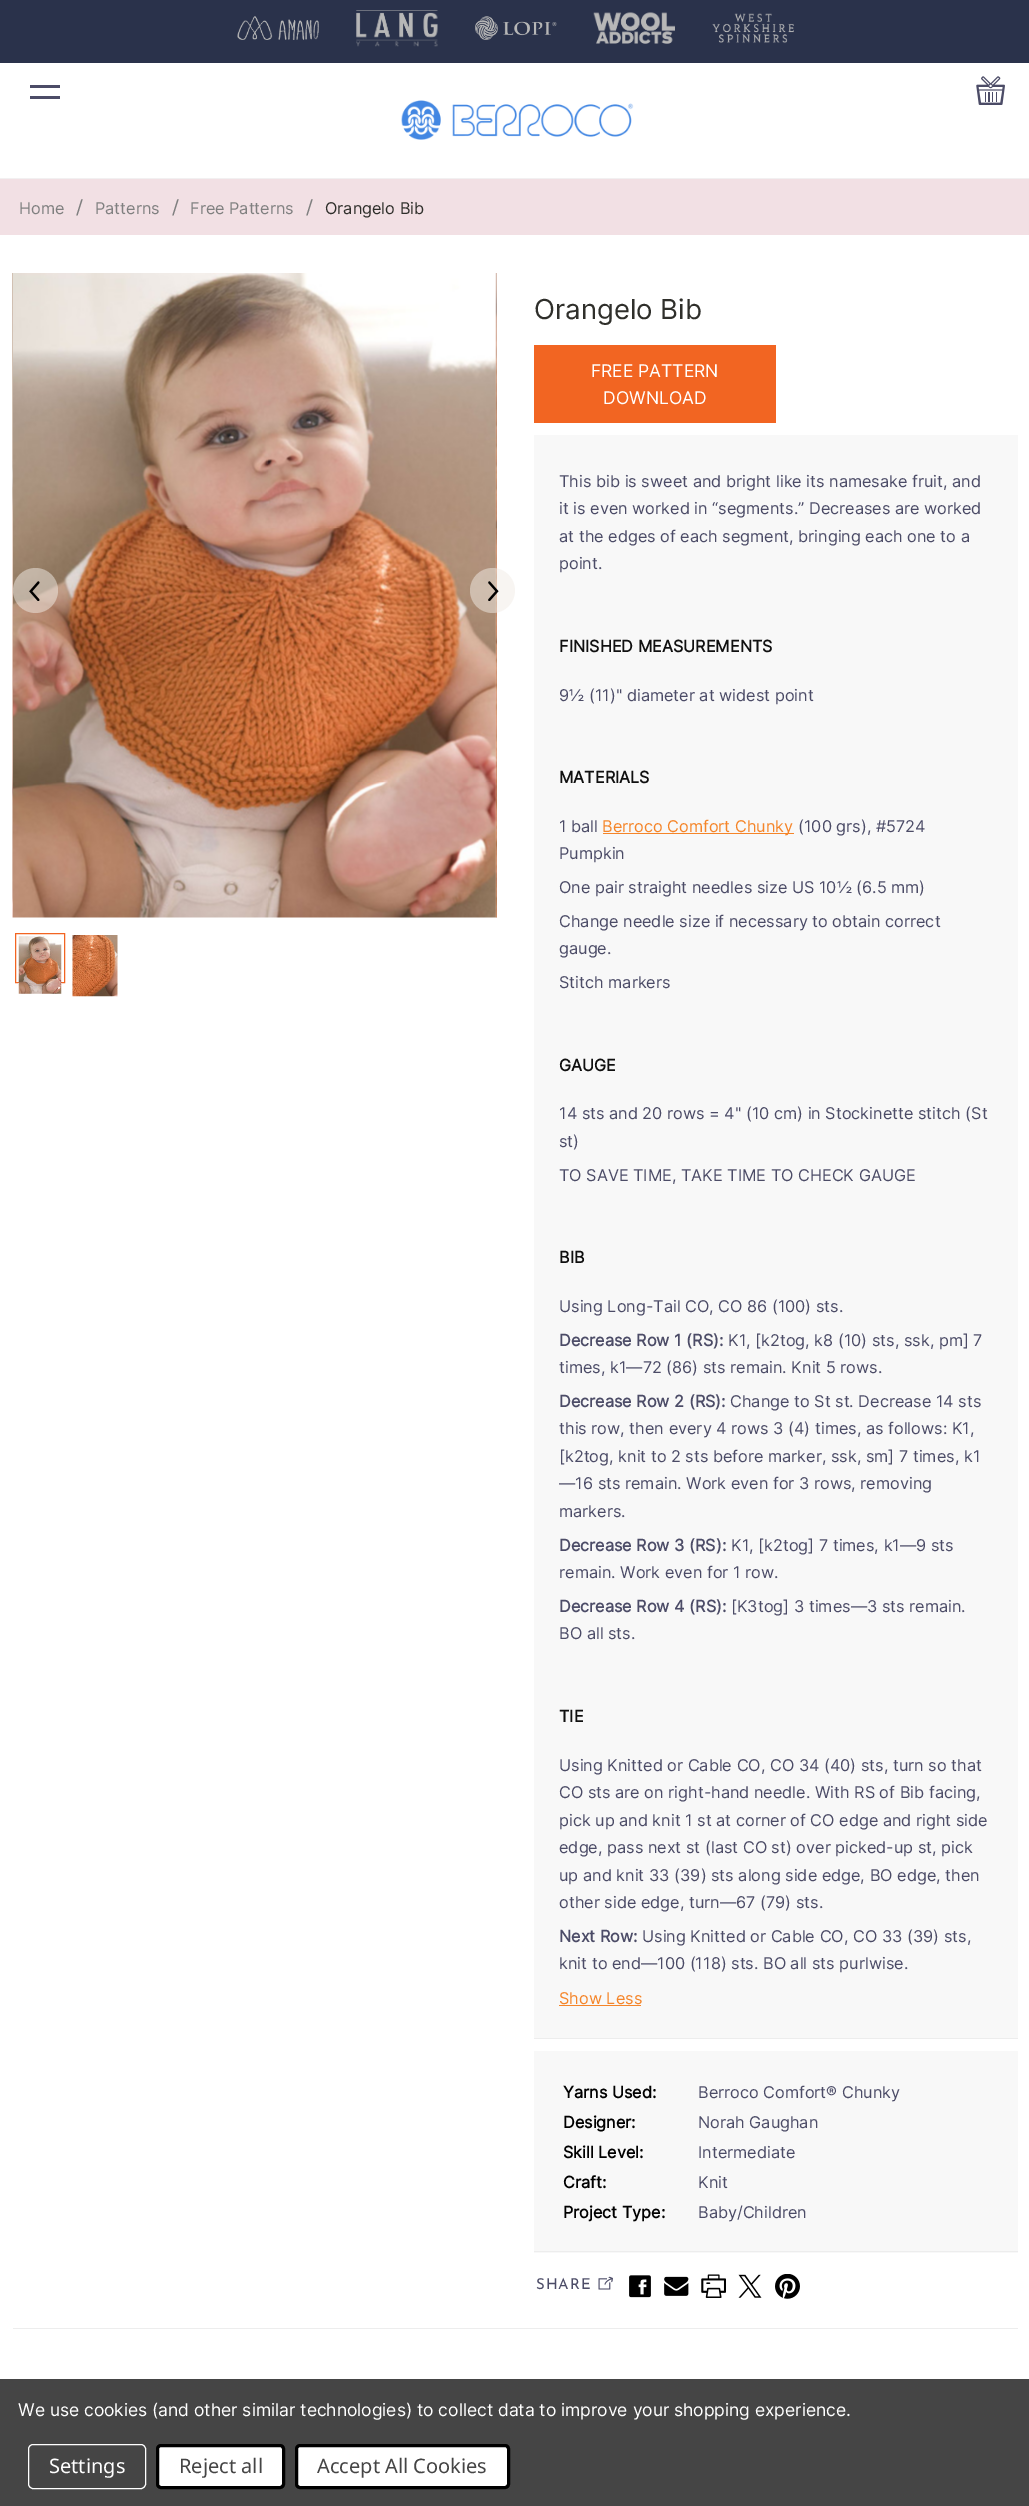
%!PS-Adobe-3.0
%%BoundingBox: 0 0 1029 2506
%%LanguageLevel: 3
%%Pages: 1
%%EndComments
%%BeginProlog
/setink { dup -16 bitshift 255 div exch dup -8 bitshift 255 and 255 div exch 255 and 255 div setrgbcolor } def
/usefont { [ exch dup neg 0 0 3 -1 roll 0 0 ] selectfont } def
/setalpha { dup .setfillconstantalpha .setstrokeconstantalpha } def
/disc { newpath 0 360 arc closepath } def
/rrect { 5 dict begin { /r /h /w /y /x } { exch def } forall
  x r add y moveto x w add y 2 copy h add r arct x w add y h add x 1 index r arct
  x y h add x y r arct x y 2 copy exch w add exch r arct closepath end } def
/drawimage { 5 dict begin { /h /w /y /x /name } { exch def } forall
  gsave x y translate w h scale
  w h 8 [w 0 0 h 0 0] name (r) file false 3 colorimage grestore end } def
%%EndProlog
%%BeginSetup
<< /PageSize [1029 2506] /PageUsesTransparency true >> setpagedevice
%%EndSetup
%%Page: 1 1
0 .pushpdf14devicefilter
0 2506 translate 1 -1 scale
4 setmiterlimit
16#FFFFFF setink
0 0 1029 2506 rectfill
16#F2F0F1 setink
0 178 1029 1 rectfill
16#2A324B setink
0 0 1029 63 rectfill
(img1.raw) 237 16 82 24 drawimage
(img2.raw) 356 10 82 37 drawimage
(img3.raw) 475 16 82 24 drawimage
(img4.raw) 593 12 82 32 drawimage
(img5.raw) 712 13 82 30 drawimage
16#4C4C67 setink
30 85 30 3 rectfill
30 96 30 3 rectfill
(img6.raw) 976 76 29 29 drawimage
(img7.raw) 401 100 233 40 drawimage
16#F2E0E4 setink
0 179 1029 56 rectfill
/Inter-Regular 16.25 usefont
16#808080 setink
19 214 moveto (Home) show
/Karla-Regular 20 usefont
75 214 moveto (/) show
/Inter-Regular 16.25 usefont
95 214 moveto (Patterns) show
/Karla-Regular 20 usefont
171 214 moveto (/) show
/Inter-Regular 16.25 usefont
190 214 moveto (Free Patterns) show
/Karla-Regular 20 usefont
305 214 moveto (/) show
/Inter-Regular 16.25 usefont
16#2F2F2B setink
325 214 moveto (Orangelo Bib) show
(img8.raw) 12 273 1 645 drawimage
(img9.raw) 13 273 484 645 drawimage
(img10.raw) 495 273 2 645 drawimage
0.5 setalpha
16#F1ECE6 setink
35.5 590.5 22.5 disc fill
1 setalpha
(img11.raw) 29 581 11 20 drawimage
0.5 setalpha
492.5 590.5 22.5 disc fill
1 setalpha
(img12.raw) 488 581 11 20 drawimage
16#F26522 setink
15.5 933.5 49 49 rectstroke
(img13.raw) 18 936 44 58 drawimage
(img14.raw) 72 935 46 62 drawimage
/Inter-Regular 27.5 usefont
16#2F2F2B setink
534 319 moveto (Orangelo Bib) show
16#F26522 setink
534 345 242 78 rectfill
/Inter-Regular 17.5 usefont
16#FFFFFF setink
591 377 moveto (FREE PATTERN) show
603 404 moveto (DOWNLOAD) show
16#F8F8F8 setink
534 435 484 1603 rectfill
16#EDEDED setink
534 2038 484 1 rectfill
/Inter-Regular 16.25 usefont
16#4C4C67 setink
[
    [(This bib is sweet and bright like its namesake fruit, and) 559 487]
    [(it is even worked in “segments.” Decreases are worked) 559 514]
    [(at the edges of each segment, bringing each one to a) 559 542]
    [(point.) 559 569]
] { aload pop moveto show } forall
/Inter-Bold 16.25 usefont
16#101010 setink
559 652 moveto (FINISHED MEASUREMENTS) show
/Inter-Regular 16.25 usefont
16#4C4C67 setink
559 701 moveto (9½ \(11\)" diameter at widest point) show
/Inter-Bold 16.25 usefont
16#101010 setink
559 783 moveto (MATERIALS) show
/Inter-Regular 16.25 usefont
16#4C4C67 setink
559 832 moveto (1 ball) show
16#F58529 setink
603 833 191 1 rectfill
602 832 moveto (Berroco Comfort Chunky) show
16#4C4C67 setink
[
    [(\(100 grs\), #5724) 798 832]
    [(Pumpkin) 559 859]
    [(One pair straight needles size US 10½ \(6.5 mm\)) 559 893]
    [(Change needle size if necessary to obtain correct) 559 927]
    [(gauge.) 559 954]
    [(Stitch markers) 559 988]
] { aload pop moveto show } forall
/Inter-Bold 16.25 usefont
16#101010 setink
559 1071 moveto (GAUGE) show
/Inter-Regular 16.25 usefont
16#4C4C67 setink
[
    [(14 sts and 20 rows = 4" \(10 cm\) in Stockinette stitch \(St) 559 1119]
    [(st\)) 559 1147]
    [(TO SAVE TIME, TAKE TIME TO CHECK GAUGE) 559 1181]
] { aload pop moveto show } forall
/Inter-Bold 16.25 usefont
16#101010 setink
559 1263 moveto (BIB) show
/Inter-Regular 16.25 usefont
16#4C4C67 setink
559 1312 moveto (Using Long-Tail CO, CO 86 \(100\) sts.) show
/Inter-Bold 16.25 usefont
559 1346 moveto (Decrease Row 1 \(RS\):) show
/Inter-Regular 16.25 usefont
728 1346 moveto (K1, [k2tog, k8 \(10\) sts, ssk, pm] 7) show
559 1373 moveto (times, k1—72 \(86\) sts remain. Knit 5 rows.) show
/Inter-Bold 16.25 usefont
559 1407 moveto (Decrease Row 2 \(RS\):) show
/Inter-Regular 16.25 usefont
[
    [(Change to St st. Decrease 14 sts) 730 1407]
    [(this row, then every 4 rows 3 \(4\) times, as follows: K1,) 559 1434]
    [([k2tog, knit to 2 sts before marker, ssk, sm] 7 times, k1) 559 1462]
    [(—16 sts remain. Work even for 3 rows, removing) 559 1489]
    [(markers.) 559 1517]
] { aload pop moveto show } forall
/Inter-Bold 16.25 usefont
559 1551 moveto (Decrease Row 3 \(RS\):) show
/Inter-Regular 16.25 usefont
731 1551 moveto (K1, [k2tog] 7 times, k1—9 sts) show
559 1578 moveto (remain. Work even for 1 row.) show
/Inter-Bold 16.25 usefont
559 1612 moveto (Decrease Row 4 \(RS\):) show
/Inter-Regular 16.25 usefont
731 1612 moveto ([K3tog] 3 times—3 sts remain.) show
559 1639 moveto (BO all sts.) show
/Inter-Bold 16.25 usefont
16#101010 setink
559 1722 moveto (TIE) show
/Inter-Regular 16.25 usefont
16#4C4C67 setink
[
    [(Using Knitted or Cable CO, CO 34 \(40\) sts, turn so that) 559 1771]
    [(CO sts are on right-hand needle. With RS of Bib facing,) 559 1798]
    [(pick up and knit 1 st at corner of CO edge and right side) 559 1826]
    [(edge, pass next st \(last CO st\) over picked-up st, pick) 559 1853]
    [(up and knit 33 \(39\) sts along side edge, BO edge, then) 559 1881]
    [(other side edge, turn—67 \(79\) sts.) 559 1908]
] { aload pop moveto show } forall
/Inter-Bold 16.25 usefont
559 1942 moveto (Next Row:) show
/Inter-Regular 16.25 usefont
642 1942 moveto (Using Knitted or Cable CO, CO 33 \(39\) sts,) show
559 1969 moveto (knit to end—100 \(118\) sts. BO all sts purlwise.) show
16#F58529 setink
559 2004 moveto (Show Less) show
[
    [559 2005 82 1 16#F58529]
    [534 2051 484 202 16#F8F8F8]
    [534 2251 484 1 16#EDEDED]
] { aload pop setink rectfill } forall
/Inter-Bold 16.25 usefont
16#000000 setink
563 2098 moveto (Yarns Used:) show
/Inter-Regular 16.25 usefont
16#4C4C67 setink
698 2098 moveto (Berroco Comfort® Chunky) show
/Inter-Bold 16.25 usefont
16#000000 setink
563 2128 moveto (Designer:) show
/Inter-Regular 16.25 usefont
16#4C4C67 setink
698 2128 moveto (Norah Gaughan) show
/Inter-Bold 16.25 usefont
16#000000 setink
563 2158 moveto (Skill Level:) show
/Inter-Regular 16.25 usefont
16#4C4C67 setink
698 2158 moveto (Intermediate) show
/Inter-Bold 16.25 usefont
16#000000 setink
563 2188 moveto (Craft:) show
/Inter-Regular 16.25 usefont
16#4C4C67 setink
698 2188 moveto (Knit) show
/Inter-Bold 16.25 usefont
16#000000 setink
563 2218 moveto (Project Type:) show
/Inter-Regular 16.25 usefont
16#4C4C67 setink
698 2218 moveto (Baby/Children) show
/JosefinSans-Regular 15 usefont
536 2289 moveto 1 0 (SHARE) ashow
(img15.raw) 598 2276 15 14 drawimage
(img16.raw) 629 2275 22 23 drawimage
(img17.raw) 664 2276 25 20 drawimage
(img18.raw) 701 2274 25 24 drawimage
(img19.raw) 738 2274 24 24 drawimage
(img20.raw) 775 2274 25 25 drawimage
16#EDEDED setink
13 2328 1005 1 rectfill
16#454545 setink
0 2379 1029 127 rectfill
/Inter-Regular 17.5 usefont
16#FFFFFF setink
18 2416 moveto -0.05 0 (We use cookies \(and other similar technologies\) to collect data to improve your shopping experience.) ashow
28.5 2444.5 117 44 4.5 rrect stroke
/NotoSans-Regular 20 usefont
49 2473 moveto (Settings) show
157.5 2445.5 126 42 3.5 rrect gsave fill grestore
16#000000 setink
3 setlinewidth
stroke
16#454545 setink
179 2473 moveto (Reject all) show
16#FFFFFF setink
296.5 2445.5 212 42 3.5 rrect gsave fill grestore
16#000000 setink
stroke
16#454545 setink
317 2473 moveto (Accept All Cookies) show
.poppdf14devicefilter showpage
%%EOF
